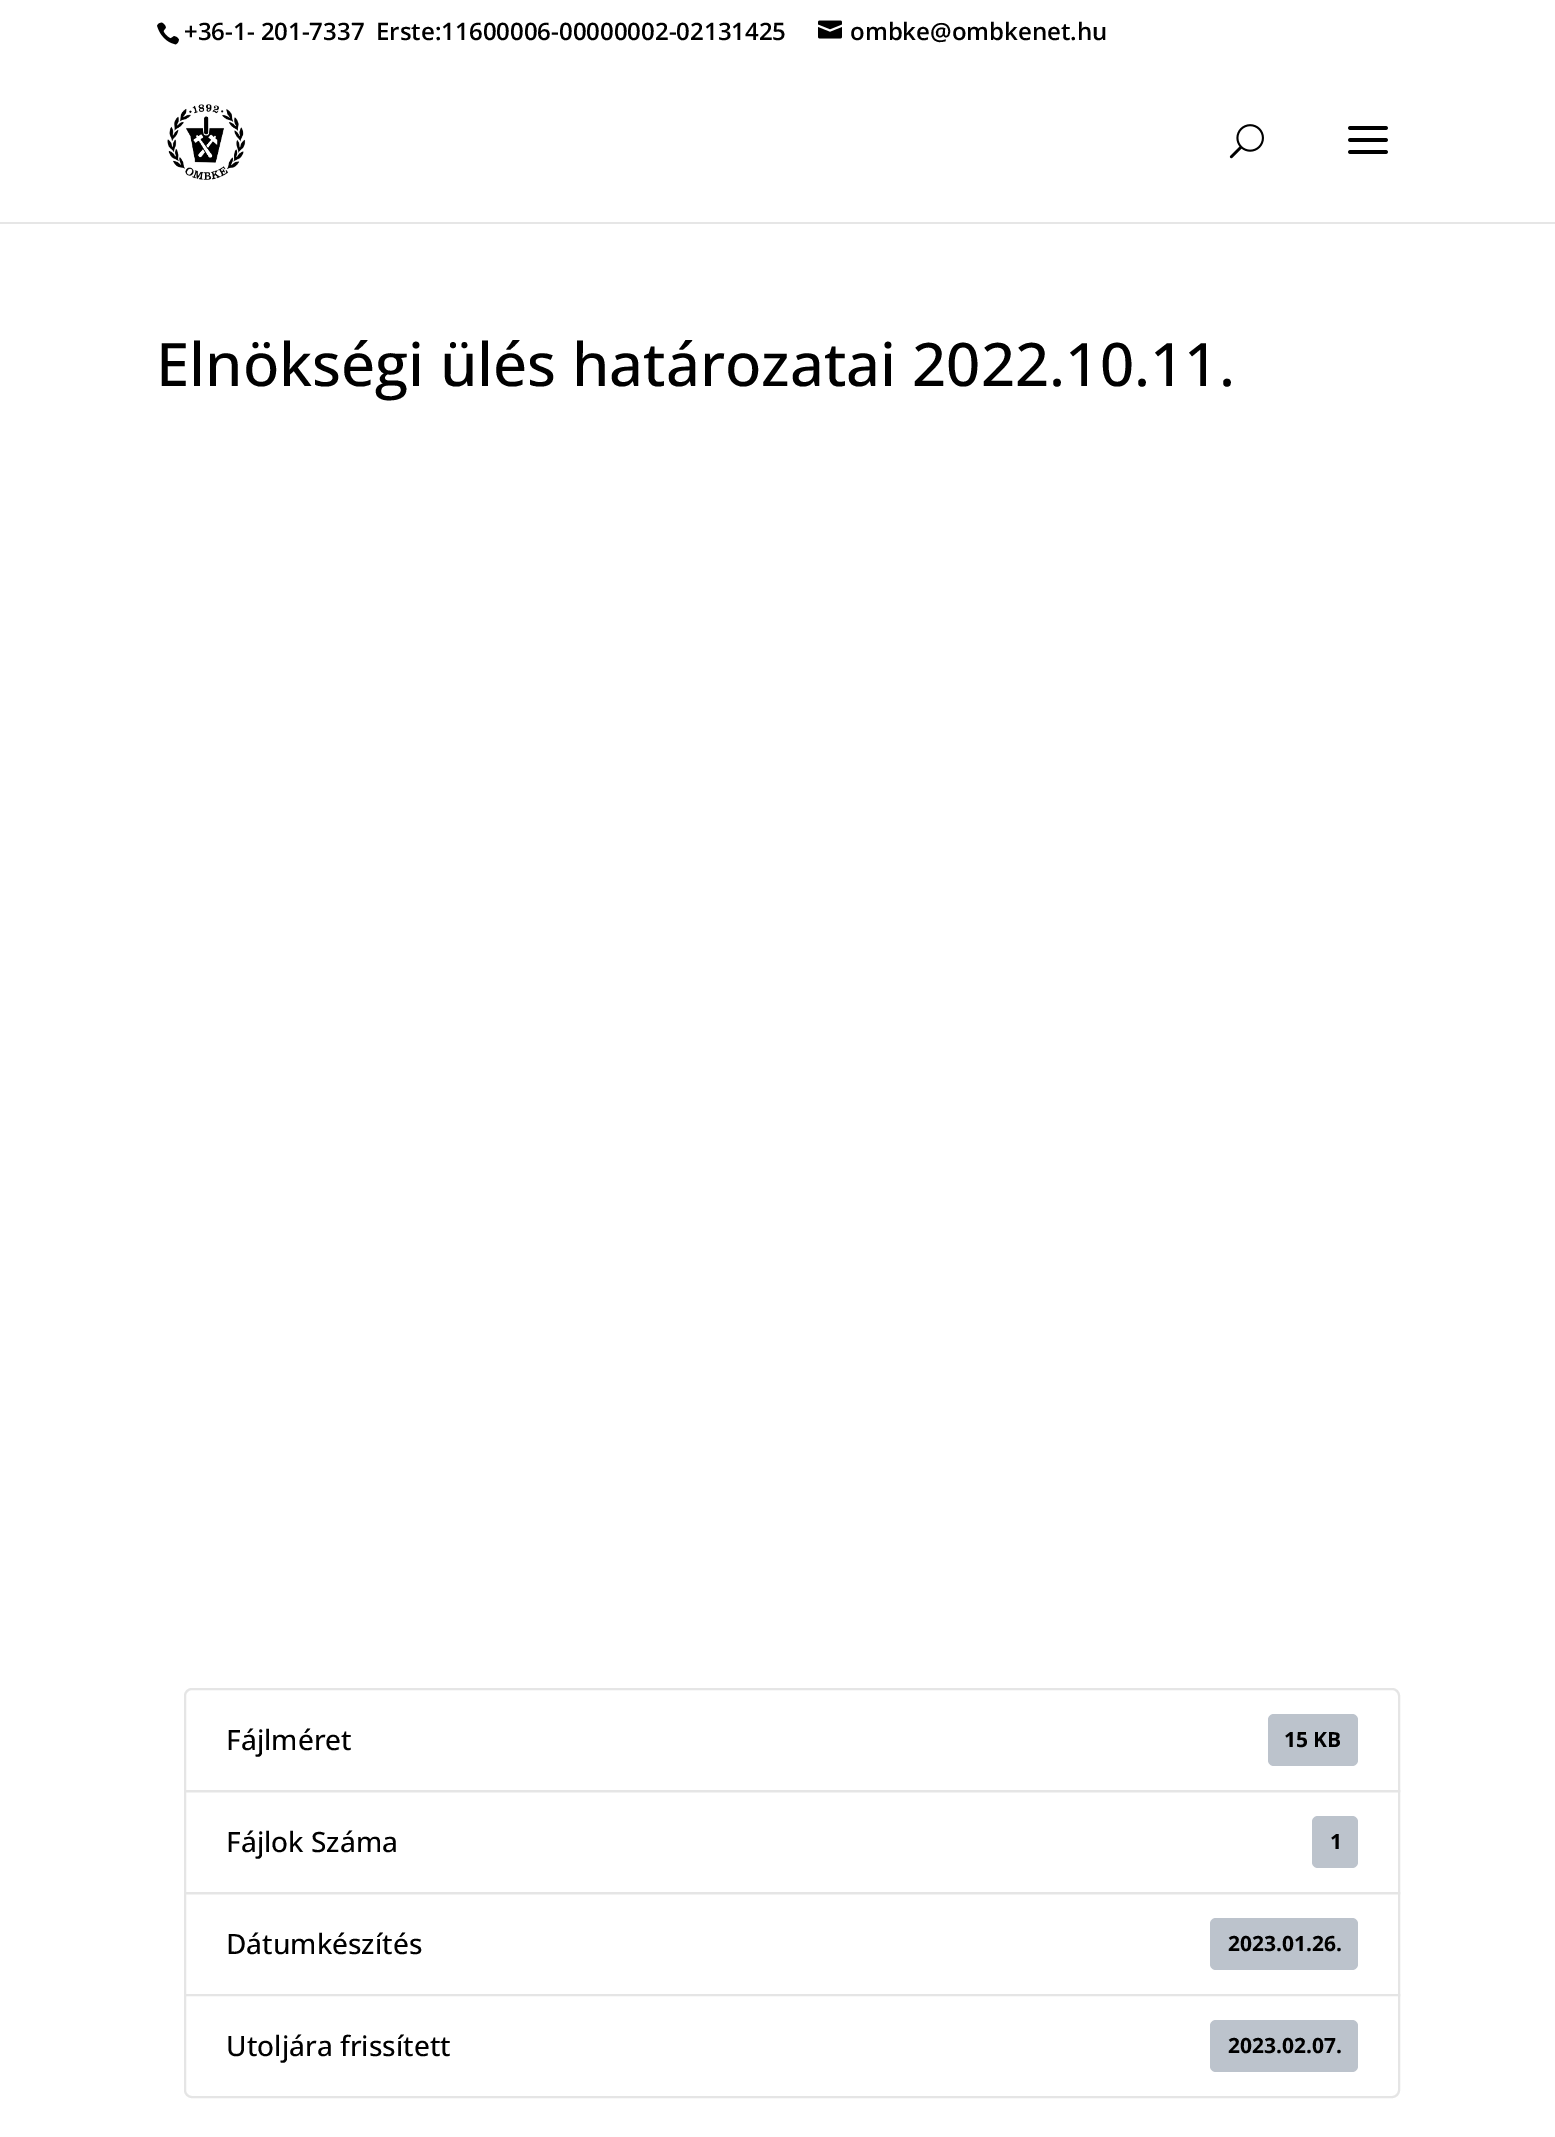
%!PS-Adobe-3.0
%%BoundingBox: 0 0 1555 2137
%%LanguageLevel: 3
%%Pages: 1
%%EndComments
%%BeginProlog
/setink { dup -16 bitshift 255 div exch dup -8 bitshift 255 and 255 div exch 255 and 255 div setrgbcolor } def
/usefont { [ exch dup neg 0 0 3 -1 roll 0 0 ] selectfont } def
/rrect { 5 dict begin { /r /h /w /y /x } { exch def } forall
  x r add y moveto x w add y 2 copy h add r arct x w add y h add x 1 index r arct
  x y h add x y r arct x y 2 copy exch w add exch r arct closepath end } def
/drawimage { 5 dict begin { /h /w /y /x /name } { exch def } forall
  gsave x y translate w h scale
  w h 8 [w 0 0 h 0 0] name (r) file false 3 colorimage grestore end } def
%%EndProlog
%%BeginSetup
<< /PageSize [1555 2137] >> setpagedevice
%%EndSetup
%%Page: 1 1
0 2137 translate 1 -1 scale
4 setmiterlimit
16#FFFFFF setink
0 0 1555 2137 rectfill
(img1.raw) 157 22 22 23 drawimage
/OpenSans-SemiBold 24 usefont
16#000000 setink
184 40 moveto (+36-1- 201-7337) show
376 40 moveto (Erste:11600006-00000002-02131425) show
(img2.raw) 818 20 24 19 drawimage
850 40 moveto (ombke@ombkenet.hu) show
16#E6E6E6 setink
0 222 1555 2 rectfill
(img3.raw) 167 104 79 76 drawimage
(img4.raw) 1229 124 35 35 drawimage
(img5.raw) 1348 126 40 28 drawimage
/OpenSans-Medium 60 usefont
16#000000 setink
156 386 moveto (Elnökségi ülés határozatai 2022.10.11.) show
16#E5E5E5 setink
2 setlinewidth
192 1689 moveto 1392 1689 lineto 1396 1689 1399 1692 1399 1696 curveto 1399 1791 lineto 185 1791 lineto 185 1696 lineto 185 1692 188 1689 192 1689 curveto closepath stroke
/OpenSans-Medium 28 usefont
16#000000 setink
226 1750 moveto (Fájlméret) show
16#BCC3CC setink
1268 1714 90 52 6 rrect fill
/OpenSans-Bold 21 usefont
16#000000 setink
1284 1747 moveto (15 KB) show
16#E5E5E5 setink
185 1791 1214 102 rectstroke
/OpenSans-Medium 28 usefont
16#000000 setink
226 1852 moveto (Fájlok Száma) show
16#BCC3CC setink
1312 1816 46 52 6 rrect fill
/OpenSans-Bold 21 usefont
16#000000 setink
1330 1849 moveto (1) show
16#E5E5E5 setink
185 1893 1214 102 rectstroke
/OpenSans-Medium 28 usefont
16#000000 setink
226 1954 moveto (Dátumkészítés) show
16#BCC3CC setink
1210 1918 148 52 6 rrect fill
/OpenSans-Bold 21 usefont
16#000000 setink
1228 1951 moveto (2023.01.26.) show
16#FFFFFF setink
185 1995 moveto 1399 1995 lineto 1399 2090 lineto 1399 2094 1396 2097 1392 2097 curveto 192 2097 lineto 188 2097 185 2094 185 2090 curveto closepath gsave fill grestore
16#E5E5E5 setink
stroke
/OpenSans-Medium 28 usefont
16#000000 setink
226 2056 moveto (Utoljára frissített) show
16#BCC3CC setink
1210 2020 148 52 6 rrect fill
/OpenSans-Bold 21 usefont
16#000000 setink
1228 2053 moveto (2023.02.07.) show
showpage
%%EOF
